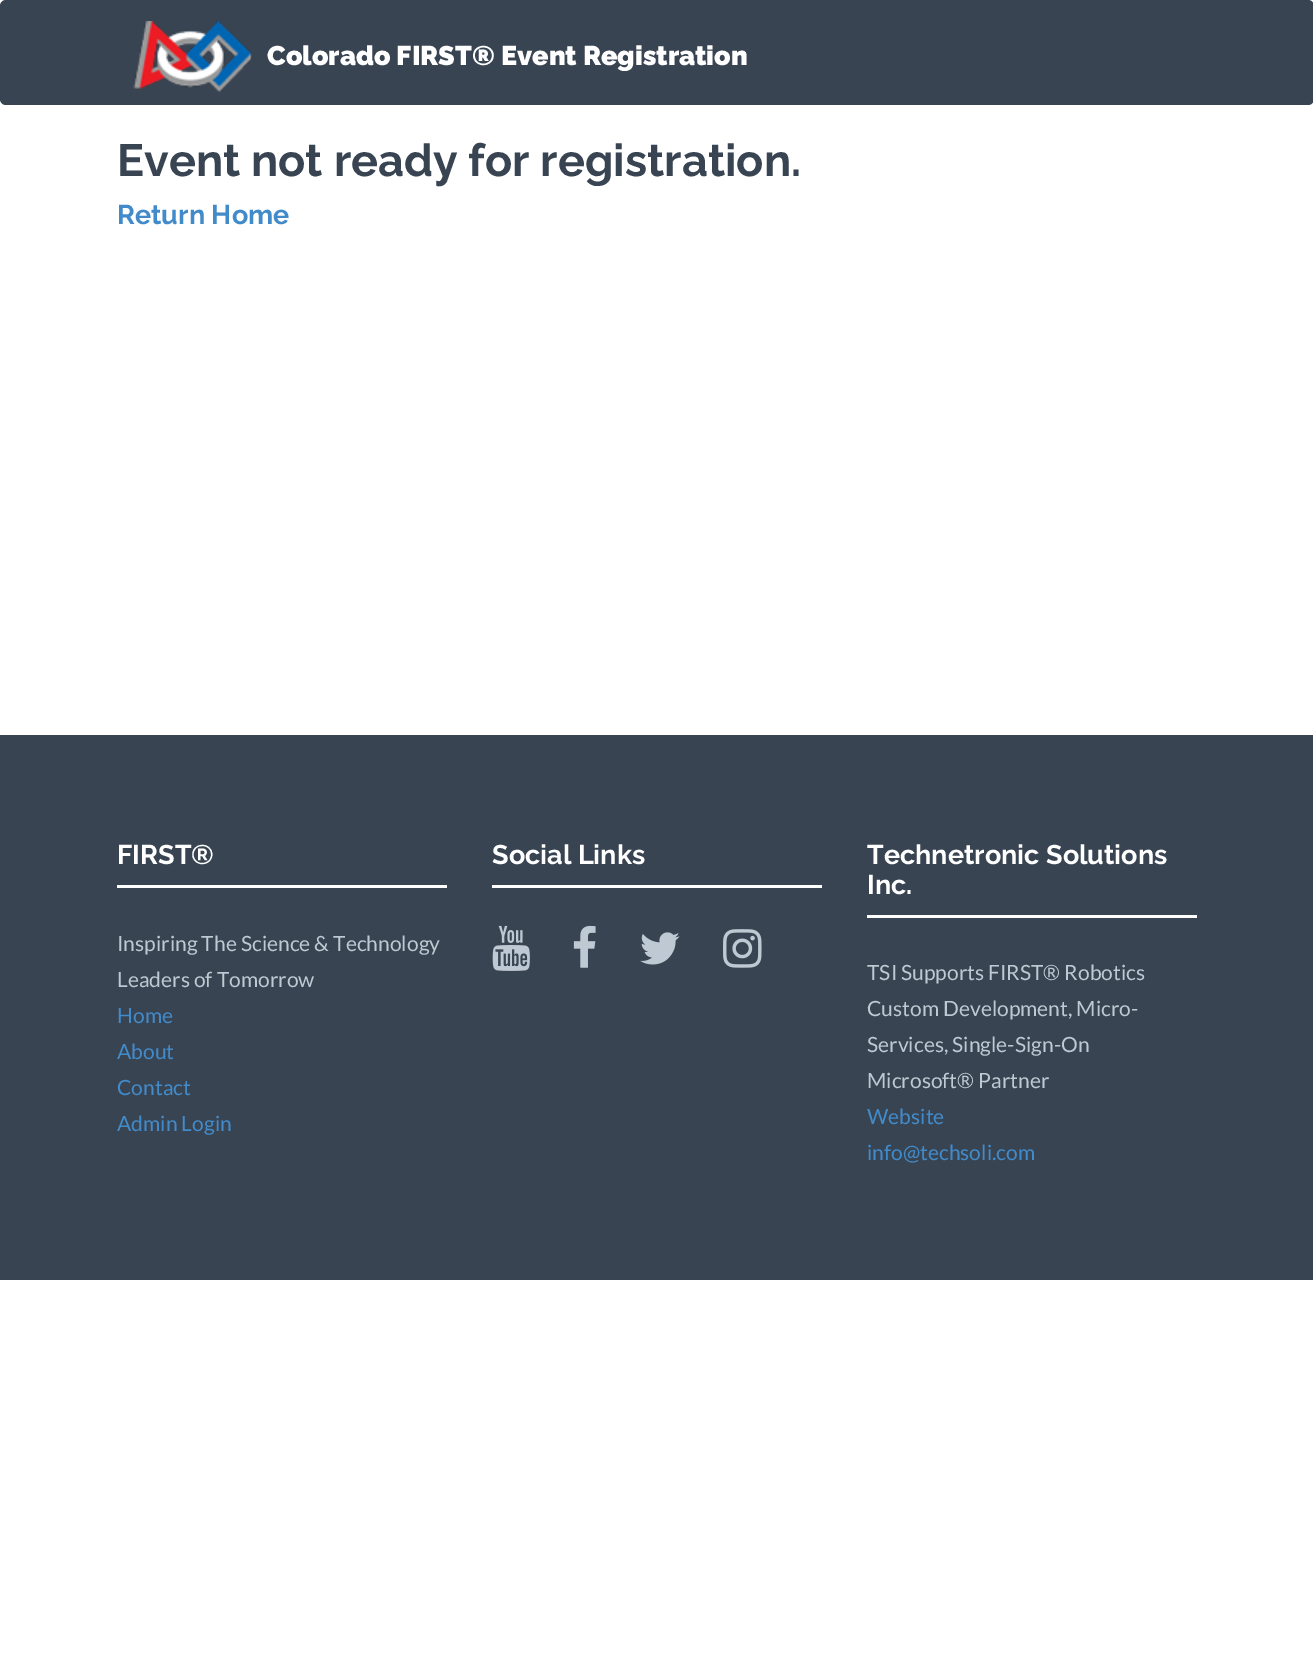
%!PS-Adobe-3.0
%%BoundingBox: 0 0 1313 1656
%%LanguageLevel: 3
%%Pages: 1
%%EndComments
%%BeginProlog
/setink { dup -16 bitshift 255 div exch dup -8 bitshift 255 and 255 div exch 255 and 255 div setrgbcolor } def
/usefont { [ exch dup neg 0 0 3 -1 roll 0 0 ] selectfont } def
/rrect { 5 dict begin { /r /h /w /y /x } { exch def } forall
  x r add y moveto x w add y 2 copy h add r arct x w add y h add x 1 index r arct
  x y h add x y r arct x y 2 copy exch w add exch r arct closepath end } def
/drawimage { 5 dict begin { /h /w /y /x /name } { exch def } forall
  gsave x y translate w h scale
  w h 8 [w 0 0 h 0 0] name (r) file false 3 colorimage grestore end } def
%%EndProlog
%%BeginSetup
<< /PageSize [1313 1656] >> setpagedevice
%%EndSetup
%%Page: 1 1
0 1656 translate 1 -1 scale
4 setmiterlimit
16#FFFFFF setink
0 0 1313 1656 rectfill
16#384452 setink
0 0 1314 105 6 rrect fill
(img1.raw) 133 21 119 71 drawimage
/Raleway-Black 27 usefont
16#FFFFFF setink
267 65 moveto (Colorado FIRST® Event Registration) show
/Raleway-Bold 45 usefont
16#384452 setink
117 176 moveto (Event not ready for registration.) show
/Raleway-Bold 27 usefont
16#428BCA setink
117 224 moveto (Return Home) show
16#384452 setink
0 735 1313 545 rectfill
16#FFFFFF setink
117 864 moveto (FIRST®) show
117 885 330 3 rectfill
/Lato-Regular 21 usefont
16#BFC9D3 setink
117 951 moveto (Inspiring The Science & Technology) show
117 987 moveto (Leaders of Tomorrow) show
16#428BCA setink
[
    [(Home) 117 1023]
    [(About) 117 1059]
    [(Contact) 117 1095]
    [(Admin Login) 117 1131]
] { aload pop moveto show } forall
/Raleway-Bold 27 usefont
16#FFFFFF setink
492 864 moveto (Social Links) show
492 885 330 3 rectfill
(img2.raw) 492 925 38 46 drawimage
(img3.raw) 573 925 23 43 drawimage
(img4.raw) 640 932 40 33 drawimage
(img5.raw) 723 929 39 39 drawimage
867 864 moveto (Technetronic Solutions) show
867 894 moveto (Inc.) show
867 915 330 3 rectfill
/Lato-Regular 21 usefont
16#BFC9D3 setink
[
    [(TSI Supports FIRST® Robotics) 867 980]
    [(Custom Development, Micro-) 867 1016]
    [(Services, Single-Sign-On) 867 1052]
    [(Microsoft® Partner) 867 1088]
] { aload pop moveto show } forall
16#428BCA setink
867 1124 moveto (Website) show
867 1160 moveto (info@techsoli.com) show
showpage
%%EOF
